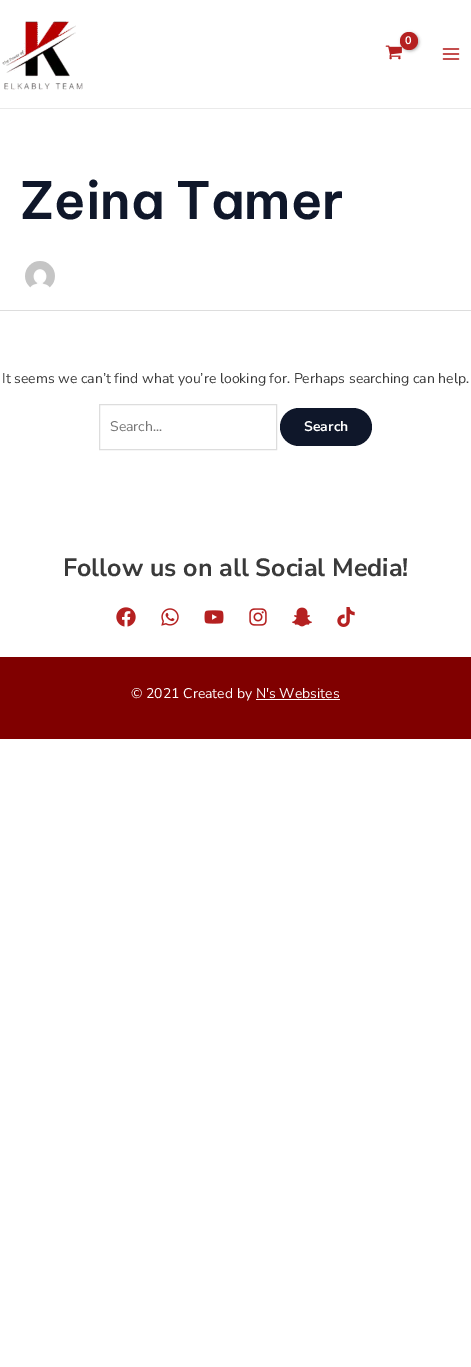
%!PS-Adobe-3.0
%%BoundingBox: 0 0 471 1367
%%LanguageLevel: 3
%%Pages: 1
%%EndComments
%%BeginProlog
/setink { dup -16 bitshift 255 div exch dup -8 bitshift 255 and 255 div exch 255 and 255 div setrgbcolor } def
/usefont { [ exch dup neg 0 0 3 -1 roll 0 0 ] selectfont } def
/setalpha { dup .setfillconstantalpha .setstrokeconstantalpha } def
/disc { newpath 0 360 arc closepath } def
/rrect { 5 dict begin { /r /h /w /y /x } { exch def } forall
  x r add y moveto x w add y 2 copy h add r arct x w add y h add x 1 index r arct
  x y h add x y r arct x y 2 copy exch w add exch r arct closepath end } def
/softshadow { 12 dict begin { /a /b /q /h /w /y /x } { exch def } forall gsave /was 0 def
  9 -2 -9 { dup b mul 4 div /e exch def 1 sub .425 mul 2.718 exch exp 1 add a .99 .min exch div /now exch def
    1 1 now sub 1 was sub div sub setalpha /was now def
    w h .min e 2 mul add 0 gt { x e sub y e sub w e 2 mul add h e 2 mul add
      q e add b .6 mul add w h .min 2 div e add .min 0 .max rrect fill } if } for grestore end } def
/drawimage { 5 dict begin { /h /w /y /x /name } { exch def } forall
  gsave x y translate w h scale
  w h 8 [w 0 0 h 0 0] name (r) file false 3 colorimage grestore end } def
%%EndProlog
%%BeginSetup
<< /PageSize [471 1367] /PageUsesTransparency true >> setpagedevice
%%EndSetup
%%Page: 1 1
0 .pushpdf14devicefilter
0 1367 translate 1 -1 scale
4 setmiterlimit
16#FFFFFF setink
0 0 471 1367 rectfill
16#EAEAEA setink
0 108 471 1 rectfill
(img1.raw) 2 21 81 69 drawimage
(img2.raw) 385 45 17 15 drawimage
16#000000 setink
401 33 18 18 9 1.5 0.3 softshadow
16#B52121 setink
409 41 9 disc fill
/NunitoSans-Bold 11 usefont
16#FFFFFF setink
405 44 moveto (0) show
(img3.raw) 442 48 18 12 drawimage
16#DDDDDD setink
0 310 471 1 rectfill
/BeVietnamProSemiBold-SemiBold 51.5 usefont
16#0F172A setink
20 219 moveto (Zeina Tamer) show
(img4.raw) 25 261 30 27 drawimage
/NunitoSans-Regular 14 usefont
16#3A3A3A setink
2 383 moveto (It seems we can’t find what you’re looking for. Perhaps searching can help.) show
16#DDDDDD setink
99.5 404.5 177 45 rectstroke
16#757575 setink
110 431 moveto (Search...) show
16#0F172A setink
280 408 92 38 19 rrect fill
/NunitoSans-Bold 14 usefont
16#FFFFFF setink
304 431 moveto (Search) show
/NunitoSans-Bold 25 usefont
16#3A3A3A setink
63 576 moveto (Follow us on all Social Media!) show
(img5.raw) 116 607 20 20 drawimage
(img6.raw) 161 608 18 18 drawimage
(img7.raw) 204 610 20 14 drawimage
(img8.raw) 249 608 18 18 drawimage
(img9.raw) 292 607 20 20 drawimage
(img10.raw) 337 607 18 20 drawimage
16#800000 setink
0 657 471 82 rectfill
/NunitoSans-Regular 14 usefont
16#FFFFFF setink
131 698 moveto (© 2021 Created by N's Websites) show
256 699 84 1 rectfill
.poppdf14devicefilter showpage
%%EOF
